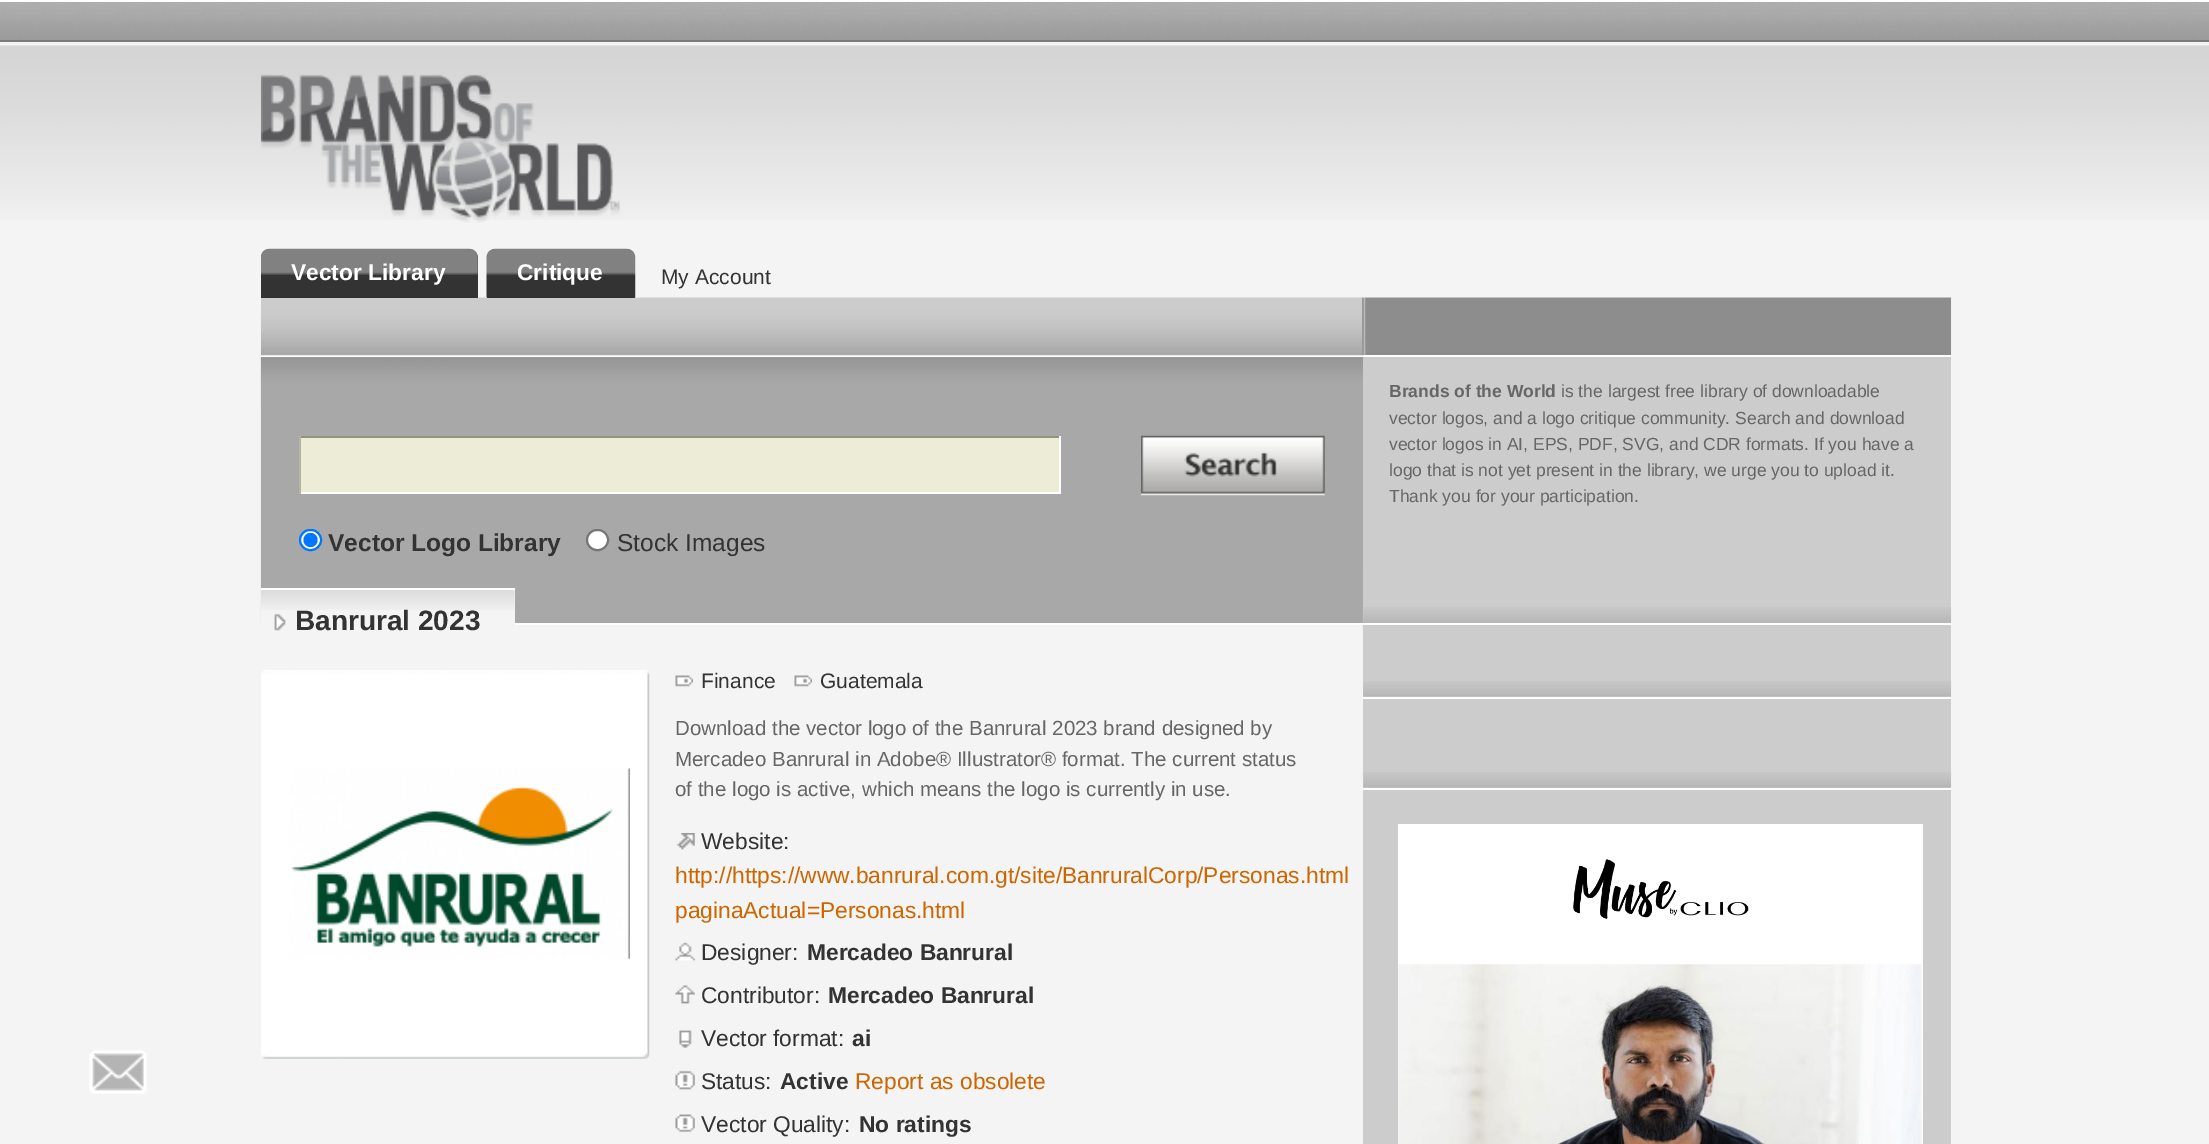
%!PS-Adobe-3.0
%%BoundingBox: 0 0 2209 1144
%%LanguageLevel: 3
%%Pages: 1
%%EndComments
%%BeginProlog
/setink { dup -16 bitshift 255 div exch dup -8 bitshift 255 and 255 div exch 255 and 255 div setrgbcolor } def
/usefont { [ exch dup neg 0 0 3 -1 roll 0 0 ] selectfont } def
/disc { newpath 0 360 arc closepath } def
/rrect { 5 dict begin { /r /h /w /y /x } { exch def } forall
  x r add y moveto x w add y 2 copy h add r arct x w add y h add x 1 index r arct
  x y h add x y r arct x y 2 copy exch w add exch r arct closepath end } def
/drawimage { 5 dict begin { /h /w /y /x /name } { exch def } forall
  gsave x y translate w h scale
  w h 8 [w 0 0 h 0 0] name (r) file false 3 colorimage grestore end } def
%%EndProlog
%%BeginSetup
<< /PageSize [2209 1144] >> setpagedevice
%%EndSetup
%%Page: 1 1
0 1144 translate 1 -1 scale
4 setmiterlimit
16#F4F4F4 setink
0 0 2209 1144 rectfill
(img1.raw) 0 45 2209 175 drawimage
(img2.raw) 0 2 2209 38 drawimage
16#FFFFFF setink
0 0 2209 2 rectfill
16#7A7A7A setink
0 40 2209 2 rectfill
(img3.raw) 89 1050 58 44 drawimage
(img4.raw) 260 74 360 149 drawimage
16#333333 setink
270 249 moveto 469 249 lineto 474 249 478 253 478 258 curveto 478 298 lineto 261 298 lineto 261 258 lineto 261 253 265 249 270 249 curveto closepath fill
(img5.raw) 261 248 217 27 drawimage
/LiberationSans-Bold 22.75 usefont
16#FEFEFE setink
291 280 moveto (Vector Library) show
(img7.raw) 478 297 1474 58 drawimage
16#333333 setink
496 249 moveto 626 249 lineto 631 249 635 253 635 258 curveto 635 298 lineto 487 298 lineto 487 258 lineto 487 253 491 249 496 249 curveto closepath fill
(img6.raw) 486 248 150 50 drawimage
16#FEFEFE setink
517 280 moveto (Critique) show
/LiberationSans-Regular 21 usefont
16#333333 setink
661 284 moveto (My Account) show
16#CCCCCC setink
261 298 1101 11 rectfill
(img9.raw) 260 355 1103 268 drawimage
16#FFFFFF setink
261 355 1690 2 rectfill
(img8.raw) 260 309 1104 47 drawimage
16#9A9A9A setink
1362 298 2 57 rectfill
16#CCCCCC setink
1363 357 588 266 rectfill
(img10.raw) 1363 607 589 16 drawimage
/LiberationSans-Bold 17.5 usefont
16#666666 setink
1389 397 moveto (Brands of the World) show
/LiberationSans-Regular 17.5 usefont
[
    [(is the largest free library of downloadable) 1561 397]
    [(vector logos, and a logo critique community. Search and download) 1389 424]
    [(vector logos in AI, EPS, PDF, SVG, and CDR formats. If you have a) 1389 450]
    [(logo that is not yet present in the library, we urge you to upload it.) 1389 476]
    [(Thank you for your participation.) 1389 502]
] { aload pop moveto show } forall
16#A8A8A8 setink
1362 409 1 160 rectfill
(img11.raw) 260 357 1103 52 drawimage
[
    [301 438 758 54 16#EDEDD7]
    [299 436 762 2 16#94947E]
    [1059 436 2 58 16#FFFFFF]
    [299 492 762 2 16#FFFFFF]
    [299 436 2 58 16#B5B59F]
] { aload pop setink rectfill } forall
(img12.raw) 1141 435 184 61 drawimage
16#FFFFFF setink
300 530 21 20 10 rrect gsave fill grestore
16#0075FF setink
2 setlinewidth
stroke
310.5 540 7 disc fill
/LiberationSans-Bold 24.5 usefont
16#333333 setink
328 551 moveto (Vector Logo Library) show
16#FFFFFF setink
587 530 21 20 10 rrect gsave fill grestore
16#767676 setink
stroke
/LiberationSans-Regular 24.5 usefont
16#333333 setink
617 551 moveto (Stock Images) show
16#FFFFFF setink
515 623 1436 2 rectfill
16#F4F4F4 setink
261 590 254 33 rectfill
(img13.raw) 261 590 254 20 drawimage
(img14.raw) 274 613 12 18 drawimage
16#FFFFFF setink
261 588 254 2 rectfill
/LiberationSans-Bold 28 usefont
16#333333 setink
295 630 moveto (Banrural 2023) show
16#FFFFFF setink
261 670 388 389 rectfill
(img15.raw) 261 670 389 389 drawimage
(img16.raw) 290 768 340 192 drawimage
(img17.raw) 675 675 18 12 drawimage
/LiberationSans-Regular 21 usefont
16#333333 setink
701 688 moveto (Finance) show
(img17.raw) 794 675 18 12 drawimage
820 688 moveto (Guatemala) show
/LiberationSans-Regular 20.5 usefont
16#666666 setink
[
    [(Download the vector logo of the Banrural 2023 brand designed by) 675 735]
    [(Mercadeo Banrural in Adobe® Illustrator® format. The current status) 675 766]
    [(of the logo is active, which means the logo is currently in use.) 675 796]
] { aload pop moveto show } forall
(img18.raw) 677 833 18 17 drawimage
/LiberationSans-Regular 22.75 usefont
16#333333 setink
701 849 moveto (Website:) show
16#CC6600 setink
675 883 moveto (http://https://www.banrural.com.gt/site/BanruralCorp/Personas.html) show
675 918 moveto (paginaActual=Personas.html) show
(img19.raw) 675 942 20 19 drawimage
16#333333 setink
701 960 moveto (Designer:) show
/LiberationSans-Bold 22.75 usefont
807 960 moveto (Mercadeo Banrural) show
(img20.raw) 675 985 20 19 drawimage
/LiberationSans-Regular 22.75 usefont
701 1003 moveto (Contributor:) show
/LiberationSans-Bold 22.75 usefont
828 1003 moveto (Mercadeo Banrural) show
(img21.raw) 679 1030 13 18 drawimage
/LiberationSans-Regular 22.75 usefont
701 1046 moveto (Vector format:) show
/LiberationSans-Bold 22.75 usefont
852 1046 moveto (ai) show
(img22.raw) 675 1070 20 20 drawimage
/LiberationSans-Regular 22.75 usefont
701 1089 moveto (Status:) show
/LiberationSans-Bold 22.75 usefont
780 1089 moveto (Active) show
/LiberationSans-Regular 22.75 usefont
16#CC6600 setink
855 1089 moveto (Report as obsolete) show
(img23.raw) 675 1114 20 18 drawimage
16#333333 setink
701 1132 moveto (Vector Quality:) show
/LiberationSans-Bold 22.75 usefont
859 1132 moveto (No ratings) show
16#CCCCCC setink
1363 625 588 519 rectfill
(img24.raw) 1363 681 589 16 drawimage
(img24.raw) 1363 772 589 16 drawimage
[
    [1363 697 588 2 16#FFFFFF]
    [1363 788 588 2 16#FFFFFF]
    [1398 824 525 320 16#FFFFFF]
] { aload pop setink rectfill } forall
(img25.raw) 1573 859 176 60 drawimage
(img26.raw) 1398 964 524 180 drawimage
showpage
%%EOF
